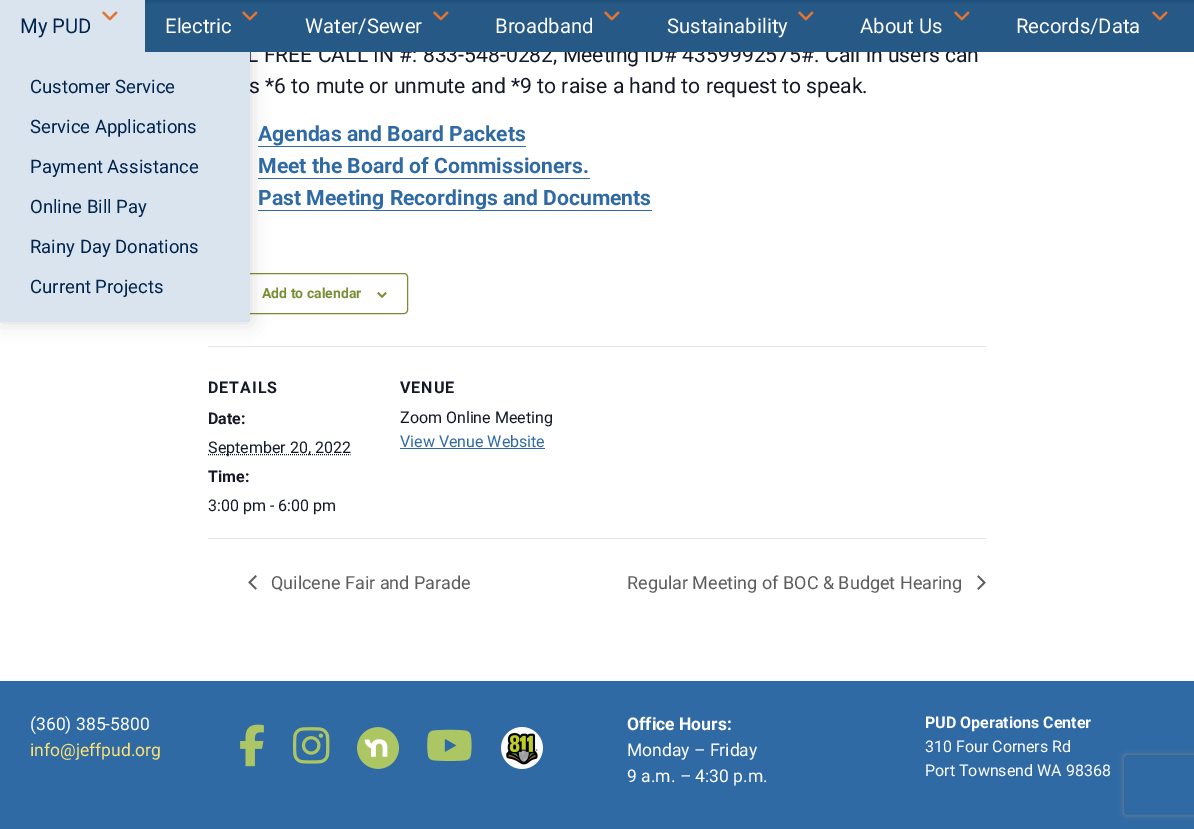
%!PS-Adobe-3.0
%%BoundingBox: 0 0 1194 829
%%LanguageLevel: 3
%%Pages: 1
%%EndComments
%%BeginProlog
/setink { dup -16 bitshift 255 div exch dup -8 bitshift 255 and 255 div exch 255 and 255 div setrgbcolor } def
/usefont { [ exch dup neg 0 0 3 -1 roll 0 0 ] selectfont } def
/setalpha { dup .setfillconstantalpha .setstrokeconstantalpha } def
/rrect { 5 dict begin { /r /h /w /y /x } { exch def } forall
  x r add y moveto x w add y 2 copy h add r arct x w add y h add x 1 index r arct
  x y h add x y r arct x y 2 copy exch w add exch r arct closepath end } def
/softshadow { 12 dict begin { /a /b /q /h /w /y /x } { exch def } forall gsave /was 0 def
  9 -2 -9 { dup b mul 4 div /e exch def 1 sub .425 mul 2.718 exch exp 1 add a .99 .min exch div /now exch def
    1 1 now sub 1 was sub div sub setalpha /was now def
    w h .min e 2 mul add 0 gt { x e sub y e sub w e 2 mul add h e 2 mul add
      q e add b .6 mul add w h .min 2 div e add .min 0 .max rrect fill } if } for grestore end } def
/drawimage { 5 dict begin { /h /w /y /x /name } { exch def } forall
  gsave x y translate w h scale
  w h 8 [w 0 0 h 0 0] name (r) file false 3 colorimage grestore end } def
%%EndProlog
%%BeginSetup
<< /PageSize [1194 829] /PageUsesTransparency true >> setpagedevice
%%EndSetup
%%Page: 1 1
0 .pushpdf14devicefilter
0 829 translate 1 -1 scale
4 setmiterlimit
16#FFFFFF setink
0 0 1194 829 rectfill
/Roboto-Regular 21.15 usefont
16#141827 setink
247 62 moveto (L FREE CALL IN #: 833-548-0282, Meeting ID# 4359992575#. Call in users can) show
gsave 145 0 moveto 1194 0 lineto 1194 52 lineto 145 52 lineto closepath clip newpath
<< /ShadingType 2 /ColorSpace /DeviceRGB /Coords [597 0 597 52] /Extend [true true] /Function << /FunctionType 3 /Domain [0 1] /Functions [<< /FunctionType 2 /Domain [0 1] /C0 [0.125 0.31 0.475] /C1 [0.153 0.349 0.529] /N 1 >> << /FunctionType 2 /Domain [0 1] /C0 [0.153 0.349 0.529] /C1 [0.153 0.349 0.529] /N 1 >>] /Bounds [0.08] /Encode [0 1 0 1] >> >> shfill grestore
16#DAE4EE setink
0 0 145 52 rectfill
(img1.raw) 102 11 16 10 drawimage
/Roboto-Regular 20.25 usefont
16#00244C setink
20 33 moveto (My PUD) show
[
    [258 146 268 1 16#2F6AA5]
    [258 178 332 1 16#2F6AA5]
    [258 210 394 1 16#2F6AA5]
] { aload pop setink rectfill } forall
16#778F32 setink
208.5 273.5 199 40 3.5 rrect stroke
16#E4E4E4 setink
208 346 778 1 rectfill
gsave
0 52 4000 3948 rectclip
16#000000 setink
0 52 250 270 0 10 0.15 softshadow
grestore
16#DAE4EE setink
0 52 250 270 rectfill
/Roboto-Regular 18.5 usefont
16#00244C setink
[
    [(Customer Service) 30 93]
    [(Service Applications) 30 133]
    [(Payment Assistance) 30 173]
    [(Online Bill Pay) 30 213]
    [(Rainy Day Donations) 30 253]
    [(Current Projects) 30 293]
] { aload pop moveto show } forall
(img2.raw) 242 11 16 10 drawimage
/Roboto-Regular 20.25 usefont
16#FFFFFF setink
165 33 moveto (Electric) show
(img2.raw) 433 11 16 10 drawimage
305 33 moveto (Water/Sewer) show
(img2.raw) 604 11 16 10 drawimage
495 33 moveto (Broadband) show
(img2.raw) 798 11 16 10 drawimage
667 33 moveto (Sustainability) show
(img2.raw) 954 11 16 10 drawimage
860 33 moveto (About Us) show
(img2.raw) 1152 11 16 10 drawimage
1016 33 moveto (Records/Data) show
/Roboto-Regular 21.15 usefont
16#141827 setink
249 93 moveto (s *6 to mute or unmute and *9 to raise a hand to request to speak.) show
/Roboto-Bold 21.15 usefont
16#2F6AA5 setink
[
    [(Agendas and Board Packets) 258 141]
    [(Meet the Board of Commissioners.) 258 173]
    [(Past Meeting Recordings and Documents) 258 205]
] { aload pop moveto show } forall
/Roboto-Bold 14 usefont
16#778F32 setink
262 298 moveto (Add to calendar) show
(img3.raw) 377 292 10 6 drawimage
/Roboto-Bold 16 usefont
16#141827 setink
208 393 moveto 1 0 (DETAILS) ashow
208 424 moveto (Date:) show
[1 1] 0 setdash
208 454.5 moveto 350.5 454.5 lineto stroke
/Roboto-Regular 16 usefont
208 453 moveto (September 20, 2022) show
/Roboto-Bold 16 usefont
208 482 moveto (Time:) show
/Roboto-Regular 16 usefont
208 511 moveto (3:00 pm - 6:00 pm) show
/Roboto-Bold 16 usefont
400 393 moveto 1 0 (VENUE) ashow
/Roboto-Regular 16 usefont
400 423 moveto (Zoom Online Meeting) show
16#2F6AA5 setink
400 447 moveto (View Venue Website) show
400 448 145 1 rectfill
16#E4E4E4 setink
208 538 778 1 rectfill
(img4.raw) 248 575 9 15 drawimage
/Roboto-Regular 18 usefont
16#5D5D5D setink
271 589 moveto (Quilcene Fair and Parade) show
627 589 moveto (Regular Meeting of BOC & Budget Hearing) show
(img5.raw) 977 575 9 15 drawimage
16#2F6AA5 setink
0 681 1194 148 rectfill
/Roboto-Regular 17.5 usefont
16#FFFFFF setink
30 730 moveto (\(360\) 385-5800) show
16#FAE076 setink
30 756 moveto (info@jeffpud.org) show
(img6.raw) 240 724 24 43 drawimage
(img7.raw) 293 727 37 37 drawimage
(img8.raw) 357 727 42 42 drawimage
(img9.raw) 427 729 45 32 drawimage
(img10.raw) 501 727 42 42 drawimage
/Roboto-Bold 17.5 usefont
16#FFFFFF setink
627 730 moveto (Office Hours:) show
/Roboto-Regular 17.5 usefont
627 756 moveto (Monday – Friday) show
627 782 moveto (9 a.m. – 4:30 p.m.) show
/Roboto-Bold 16 usefont
925 728 moveto (PUD Operations Center) show
/Roboto-Regular 16 usefont
925 752 moveto (310 Four Corners Rd) show
925 776 moveto (Port Townsend WA 98368) show
gsave
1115 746 moveto 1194 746 lineto 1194 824 lineto 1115 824 lineto closepath 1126 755 moveto 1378 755 lineto 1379 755 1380 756 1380 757 curveto 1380 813 lineto 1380 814 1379 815 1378 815 curveto 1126 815 lineto 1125 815 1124 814 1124 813 curveto 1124 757 lineto 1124 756 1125 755 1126 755 curveto closepath eoclip newpath
16#808080 setink
1124 755 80 60 2 2.5 1 softshadow
grestore
.poppdf14devicefilter showpage
%%EOF
